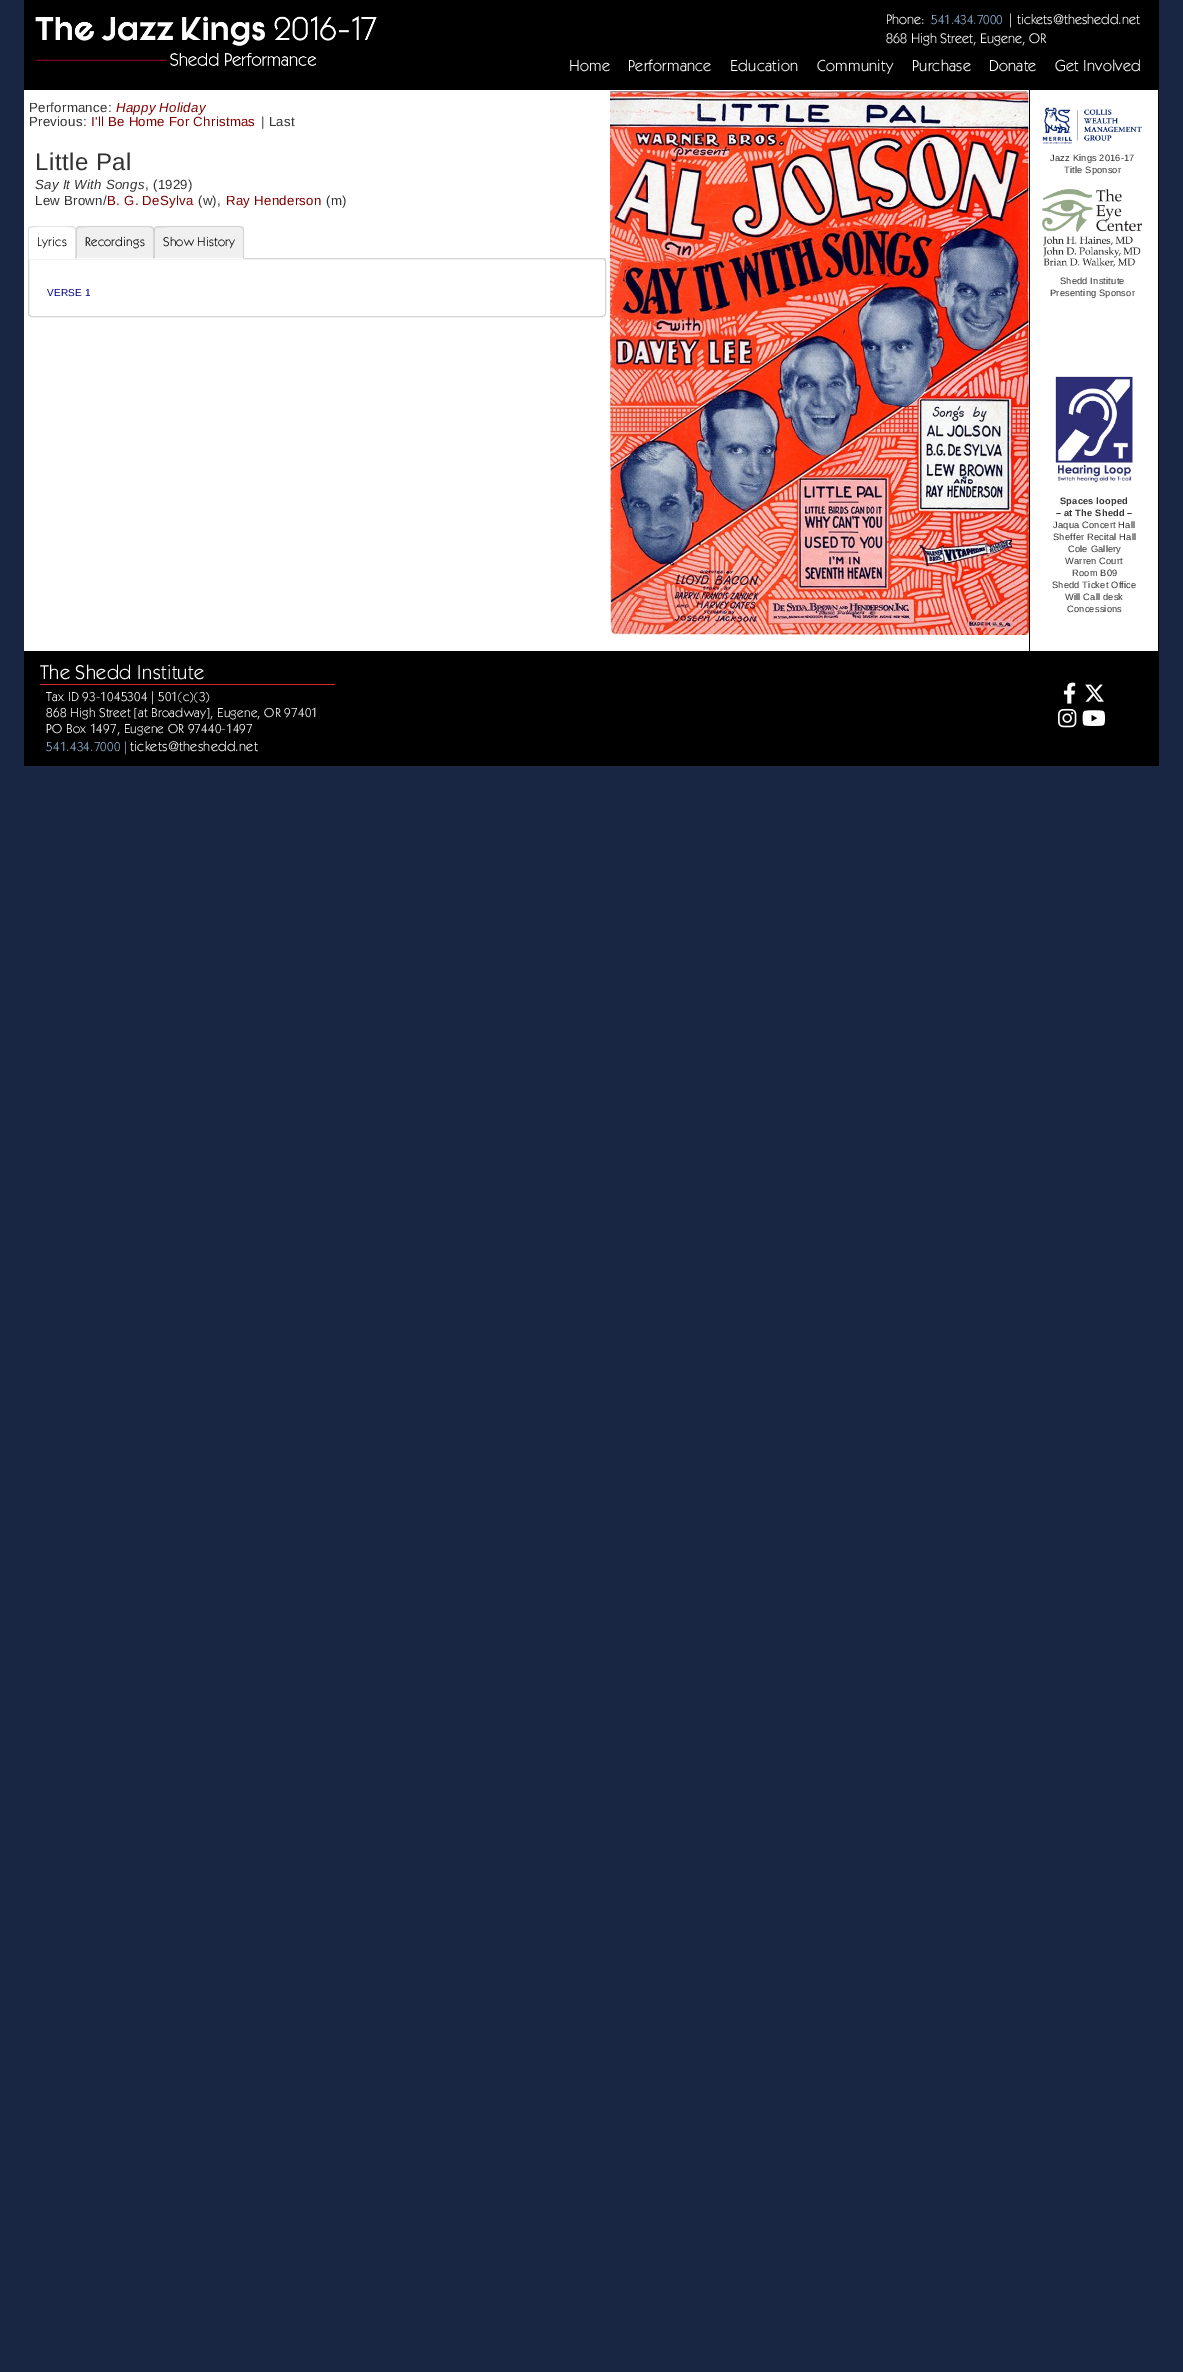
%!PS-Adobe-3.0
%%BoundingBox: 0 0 1183 2372
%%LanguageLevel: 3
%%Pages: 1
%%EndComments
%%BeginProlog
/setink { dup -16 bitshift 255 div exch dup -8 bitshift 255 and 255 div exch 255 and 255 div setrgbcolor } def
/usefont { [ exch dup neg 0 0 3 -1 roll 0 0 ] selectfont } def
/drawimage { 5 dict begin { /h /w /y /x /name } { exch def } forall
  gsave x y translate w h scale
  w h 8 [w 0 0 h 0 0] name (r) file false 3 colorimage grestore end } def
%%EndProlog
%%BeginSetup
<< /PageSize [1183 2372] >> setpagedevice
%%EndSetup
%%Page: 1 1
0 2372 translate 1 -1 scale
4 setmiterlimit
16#182543 setink
0 0 1183 2372 rectfill
16#000000 setink
24 0 1135 90 rectfill
(img1.raw) 35 16 342 50 drawimage
/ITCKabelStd-Regular 14 usefont
16#FFFFFF setink
886 24 moveto (Phone:) show
/ITCKabelStd-Regular 13 usefont
16#8EB4D3 setink
931 24 moveto (541.434.7000) show
/ITCKabelStd-Regular 14 usefont
16#FFFFFF setink
[
    [(|) 1009 24]
    [(tickets@theshedd.net) 1017 24]
    [(868 High Street, Eugene, OR) 886 43]
] { aload pop moveto show } forall
/ITCKabelStd-Regular 16 usefont
569 71 moveto 0.25 0 (Home) ashow
628 71 moveto 0.25 0 (Performance) ashow
730 71 moveto 0.25 0 (Education) ashow
817 71 moveto 0.25 0 (Community) ashow
912 71 moveto 0.25 0 (Purchase) ashow
989 71 moveto 0.25 0 (Donate) ashow
1055 71 moveto 0.25 0 (Get Involved) ashow
24 90 1134 561 rectfill
/LiberationSans-Regular 13.25 usefont
16#333333 setink
29 112 moveto 0.25 0 (Performance:) ashow
/LiberationSans-Italic 13.25 usefont
16#800000 setink
116 112 moveto 0.25 0 (Happy Holiday) ashow
/LiberationSans-Regular 13.25 usefont
16#333333 setink
29 126 moveto 0.25 0 (Previous:) ashow
16#800000 setink
91 126 moveto 0.25 0 (I'll Be Home For Christmas) ashow
16#333333 setink
261 126 moveto 0.25 0 (| Last) ashow
/LiberationSans-Regular 24 usefont
35 170 moveto 0.5 0 (Little Pal) ashow
/LiberationSans-Italic 13.25 usefont
35 189 moveto 0.25 0 (Say It With Songs) ashow
/LiberationSans-Regular 13.25 usefont
145 189 moveto 0.25 0 (, \(1929\)) ashow
35 205 moveto 0.25 0 (Lew Brown/) ashow
16#800000 setink
107 205 moveto 0.25 0 (B. G. DeSylva) ashow
16#333333 setink
198 205 moveto 0.25 0 (\(w\),) ashow
16#800000 setink
226 205 moveto 0.25 0 (Ray Henderson) ashow
16#333333 setink
326 205 moveto 0.25 0 (\(m\)) ashow
16#DEE2E6 setink
602 258 4 1 rectfill
16#D3D3D3 setink
28.5 258.5 moveto 602 258.5 lineto 604 258.5 605.5 260 605.5 262 curveto 605.5 313 lineto 605.5 315 604 316.5 602 316.5 curveto 32 316.5 lineto 30 316.5 28.5 315 28.5 313 curveto closepath stroke
16#FFFFFF setink
32 226 moveto 72 226 lineto 74 226 76 228 76 230 curveto 76 259 lineto 28 259 lineto 28 230 lineto 28 228 30 226 32 226 curveto closepath fill
16#DEE2E6 setink
32 226 moveto 29 227 lineto 30 228 lineto 31 226 73 226 74 228 curveto 75 227 lineto 72 226 lineto closepath fill
76 259 moveto 76 230 lineto 76 229 75.5 228 75 227 curveto 74 228 lineto 75 228 75 229 75 230 curveto 75 258 lineto closepath fill
16#FFFFFF setink
76 259 moveto 75 258 lineto 29 258 lineto 28 259 lineto closepath fill
16#DEE2E6 setink
28 259 moveto 29 258 lineto 29 230 lineto 29 229 29 228 30 228 curveto 29 227 lineto 28.5 228 28 229 28 230 curveto closepath fill
/ITCKabelStd-Regular 12.75 usefont
16#000000 setink
37 246 moveto 0.25 0 (Lyrics) ashow
16#F0F0F0 setink
80 226 moveto 150 226 lineto 152 226 154 228 154 230 curveto 154 259 lineto 76 259 lineto 76 230 lineto 76 228 78 226 80 226 curveto closepath fill
16#D3D3D3 setink
80 226 moveto 77 227 lineto 78 228 lineto 80 226 132 227 138 227 curveto 150 227 lineto 152 228 lineto 153 227 lineto 150 226 lineto closepath fill
154 259 moveto 154 230 lineto 154 229 153.5 228 153 227 curveto 152 228 lineto 153 228 153 229 153 230 curveto 153 258 lineto closepath fill
16#FFFFFF setink
154 259 moveto 153 258 lineto 77 258 lineto 76 259 lineto closepath fill
16#D3D3D3 setink
76 259 moveto 77 258 lineto 77 230 lineto 77 229 77 228 78 228 curveto 77 227 lineto 76.5 228 76 229 76 230 curveto closepath fill
16#000000 setink
85 246 moveto 0.25 0 (Recordings) ashow
16#F0F0F0 setink
158 226 moveto 240 226 lineto 242 226 244 228 244 230 curveto 244 259 lineto 154 259 lineto 154 230 lineto 154 228 156 226 158 226 curveto closepath fill
16#D3D3D3 setink
158 226 moveto 155 227 lineto 156 228 lineto 158 226 219 227 226 227 curveto 240 227 lineto 242 228 lineto 243 227 lineto 240 226 lineto closepath fill
244 259 moveto 244 230 lineto 244 229 243.5 228 243 227 curveto 242 228 lineto 243 228 243 229 243 230 curveto 243 258 lineto closepath fill
16#FFFFFF setink
244 259 moveto 243 258 lineto 155 258 lineto 154 259 lineto closepath fill
16#D3D3D3 setink
154 259 moveto 155 258 lineto 155 230 lineto 155 229 155 228 156 228 curveto 155 227 lineto 154.5 228 154 229 154 230 curveto closepath fill
16#000000 setink
163 246 moveto 0.25 0 (Show History) ashow
/LiberationSans-Regular 10 usefont
16#000080 setink
47 296 moveto 0.25 0 (VERSE 1) ashow
(img2.raw) 610 90 419 545 drawimage
16#000000 setink
1158 90 1 561 rectfill
1029 90 1 561 rectfill
(img3.raw) 1042 107 100 37 drawimage
/LiberationSans-Regular 9.25 usefont
16#333333 setink
1050 161 moveto 0.2 0 (Jazz Kings 2016-17) ashow
1064 173 moveto 0.2 0 (Title Sponsor) ashow
(img4.raw) 1042 189 100 78 drawimage
1060 284 moveto 0.2 0 (Shedd Institute) ashow
1050 296 moveto 0.2 0 (Presenting Sponsor) ashow
(img5.raw) 1054 376 79 107 drawimage
/LiberationSans-Bold 9.25 usefont
1060 504 moveto 0.2 0 (Spaces looped) ashow
1056 516 moveto 0.2 0 (– at The Shedd –) ashow
/LiberationSans-Regular 9.25 usefont
1053 528 moveto 0.2 0 (Jaqua Concert Hall) ashow
1053 540 moveto 0.2 0 (Sheffer Recital Hall) ashow
1068 552 moveto 0.2 0 (Cole Gallery) ashow
1065 564 moveto 0.2 0 (Warren Court) ashow
1072 576 moveto 0.2 0 (Room B09) ashow
1052 588 moveto 0.2 0 (Shedd Ticket Office) ashow
1065 600 moveto 0.2 0 (Will Call desk) ashow
1067 612 moveto 0.2 0 (Concessions) ashow
16#000000 setink
24 651 1135 115 rectfill
16#D9262A setink
40 684 295 1 rectfill
/ITCKabelStd-Regular 20 usefont
16#FFFFFF setink
40 679 moveto 0.4 0 (The Shedd Institute) ashow
/ITCKabelStd-Regular 13 usefont
46 701 moveto 0.25 0 (Tax ID 93-1045304 | 501\(c\)\(3\)) ashow
46 717 moveto 0.25 0 (868 High Street [at Broadway], Eugene, OR 97401) ashow
46 733 moveto 0.25 0 (PO Box 1497, Eugene OR 97440-1497) ashow
16#8EB4D3 setink
46 751 moveto 0.25 0 (541.434.7000 |) ashow
/ITCKabelStd-Regular 14 usefont
16#FFFFFF setink
130 751 moveto 0.25 0 (tickets@theshedd.net) ashow
(img6.raw) 1063 682 13 22 drawimage
(img7.raw) 1085 684 19 18 drawimage
(img8.raw) 1058 708 19 20 drawimage
(img9.raw) 1082 710 23 16 drawimage
showpage
%%EOF
